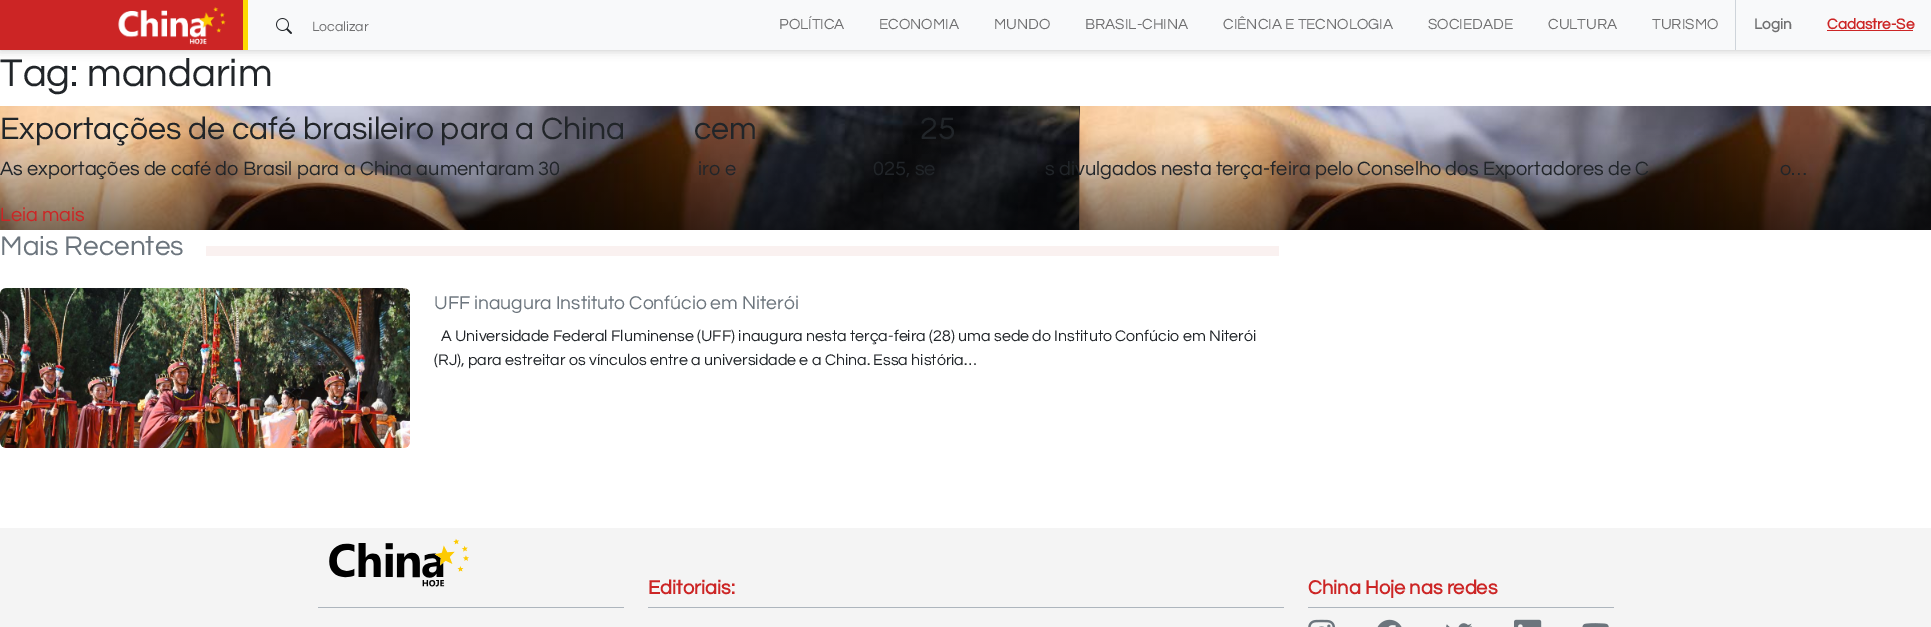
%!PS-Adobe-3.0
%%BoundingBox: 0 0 1931 627
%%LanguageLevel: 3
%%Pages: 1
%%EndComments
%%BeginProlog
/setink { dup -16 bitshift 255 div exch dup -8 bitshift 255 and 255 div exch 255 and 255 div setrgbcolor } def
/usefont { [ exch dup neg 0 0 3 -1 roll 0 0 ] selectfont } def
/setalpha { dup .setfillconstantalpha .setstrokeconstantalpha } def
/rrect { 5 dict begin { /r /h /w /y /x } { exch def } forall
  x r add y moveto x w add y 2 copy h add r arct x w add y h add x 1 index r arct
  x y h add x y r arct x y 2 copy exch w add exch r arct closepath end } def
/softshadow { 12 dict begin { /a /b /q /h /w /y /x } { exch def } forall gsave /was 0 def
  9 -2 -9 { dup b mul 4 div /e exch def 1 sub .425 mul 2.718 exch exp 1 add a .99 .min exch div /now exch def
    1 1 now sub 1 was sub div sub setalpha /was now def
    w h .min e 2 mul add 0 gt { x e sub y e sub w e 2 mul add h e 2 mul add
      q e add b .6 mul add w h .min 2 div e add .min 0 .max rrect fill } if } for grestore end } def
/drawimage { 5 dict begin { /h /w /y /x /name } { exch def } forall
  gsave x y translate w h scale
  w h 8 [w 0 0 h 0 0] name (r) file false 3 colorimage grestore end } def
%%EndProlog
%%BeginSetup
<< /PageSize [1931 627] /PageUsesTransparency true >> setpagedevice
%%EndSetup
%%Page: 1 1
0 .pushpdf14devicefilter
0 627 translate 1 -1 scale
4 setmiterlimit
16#FFFFFF setink
0 0 1931 627 rectfill
16#373737 setink
0 0 1931 50 0 5 0.31 softshadow
[
    [248 0 1683 50 16#F8F9FA]
    [0 0 243 50 16#CC2525]
    [243 0 5 50 16#FDD800]
] { aload pop setink rectfill } forall
(img1.raw) 118 7 108 38 drawimage
(img2.raw) 276 18 16 16 drawimage
/Questrial-Regular 14 usefont
16#707071 setink
312 31 moveto (Localizar) show
/Questrial-Regular 15.25 usefont
[
    [(POLÍTICA) 779 29]
    [(ECONOMIA) 879 29]
    [(MUNDO) 994 29]
    [(BRASIL-CHINA) 1085 29]
    [(CIÊNCIA E TECNOLOGIA) 1223 29]
    [(SOCIEDADE) 1428 29]
    [(CULTURA) 1548 29]
    [(TURISMO) 1652 29]
] { aload pop moveto show } forall
16#CED4DA setink
1735 0 1 50 rectfill
/Questrial-Bold 15.25 usefont
16#707071 setink
1754 29 moveto (Login) show
16#CC2525 setink
1827 29 moveto (Cadastre-Se) show
1827 30 86 1 rectfill
/Questrial-Regular 40 usefont
16#212529 setink
0 86 moveto (Tag: mandarim) show
(img3.raw) 0 106 1931 124 drawimage
/Questrial-Regular 32 usefont
[
    [(Exportações de café brasileiro para a China) 0 139]
    [(cem) 694 139]
    [(25) 920 139]
] { aload pop moveto show } forall
/Questrial-Regular 20 usefont
[
    [(As exportações de café do Brasil para a China aumentaram 30) 0 175]
    [(iro e) 698 175]
    [(025, se) 873 175]
    [(s divulgados nesta terça-feira pelo Conselho dos Exportadores de C) 1045 175]
    [(o…) 1780 175]
] { aload pop moveto show } forall
16#CC2525 setink
0 221 moveto (Leia mais) show
/Questrial-Regular 28 usefont
16#6C757D setink
0 255 moveto (Mais Recentes) show
16#FAF1F0 setink
206 246 1073 10 rectfill
(img4.raw) 0 288 410 160 drawimage
/Questrial-Regular 19.25 usefont
16#6C757D setink
434 309 moveto (UFF inaugura Instituto Confúcio em Niterói) show
/Questrial-Regular 16 usefont
16#212529 setink
441 341 moveto (A Universidade Federal Fluminense \(UFF\) inaugura nesta terça-feira \(28\) uma sede do Instituto Confúcio em Niterói) show
434 365 moveto (\(RJ\), para estreitar os vínculos entre a universidade e a China. Essa história…) show
16#F4F4F4 setink
0 528 1931 99 rectfill
16#ADB5BD setink
318 607 306 1 rectfill
(img5.raw) 329 538 140 49 drawimage
648 607 636 1 rectfill
/Questrial-Bold 20 usefont
16#CC2525 setink
648 594 moveto (Editoriais:) show
16#ADB5BD setink
1308 607 306 1 rectfill
16#CC2525 setink
1308 594 moveto (China Hoje nas redes) show
(img6.raw) 1308 619 27 8 drawimage
(img7.raw) 1377 619 25 8 drawimage
(img8.raw) 1446 623 26 4 drawimage
(img9.raw) 1514 619 28 8 drawimage
(img10.raw) 1582 623 27 4 drawimage
.poppdf14devicefilter showpage
%%EOF
